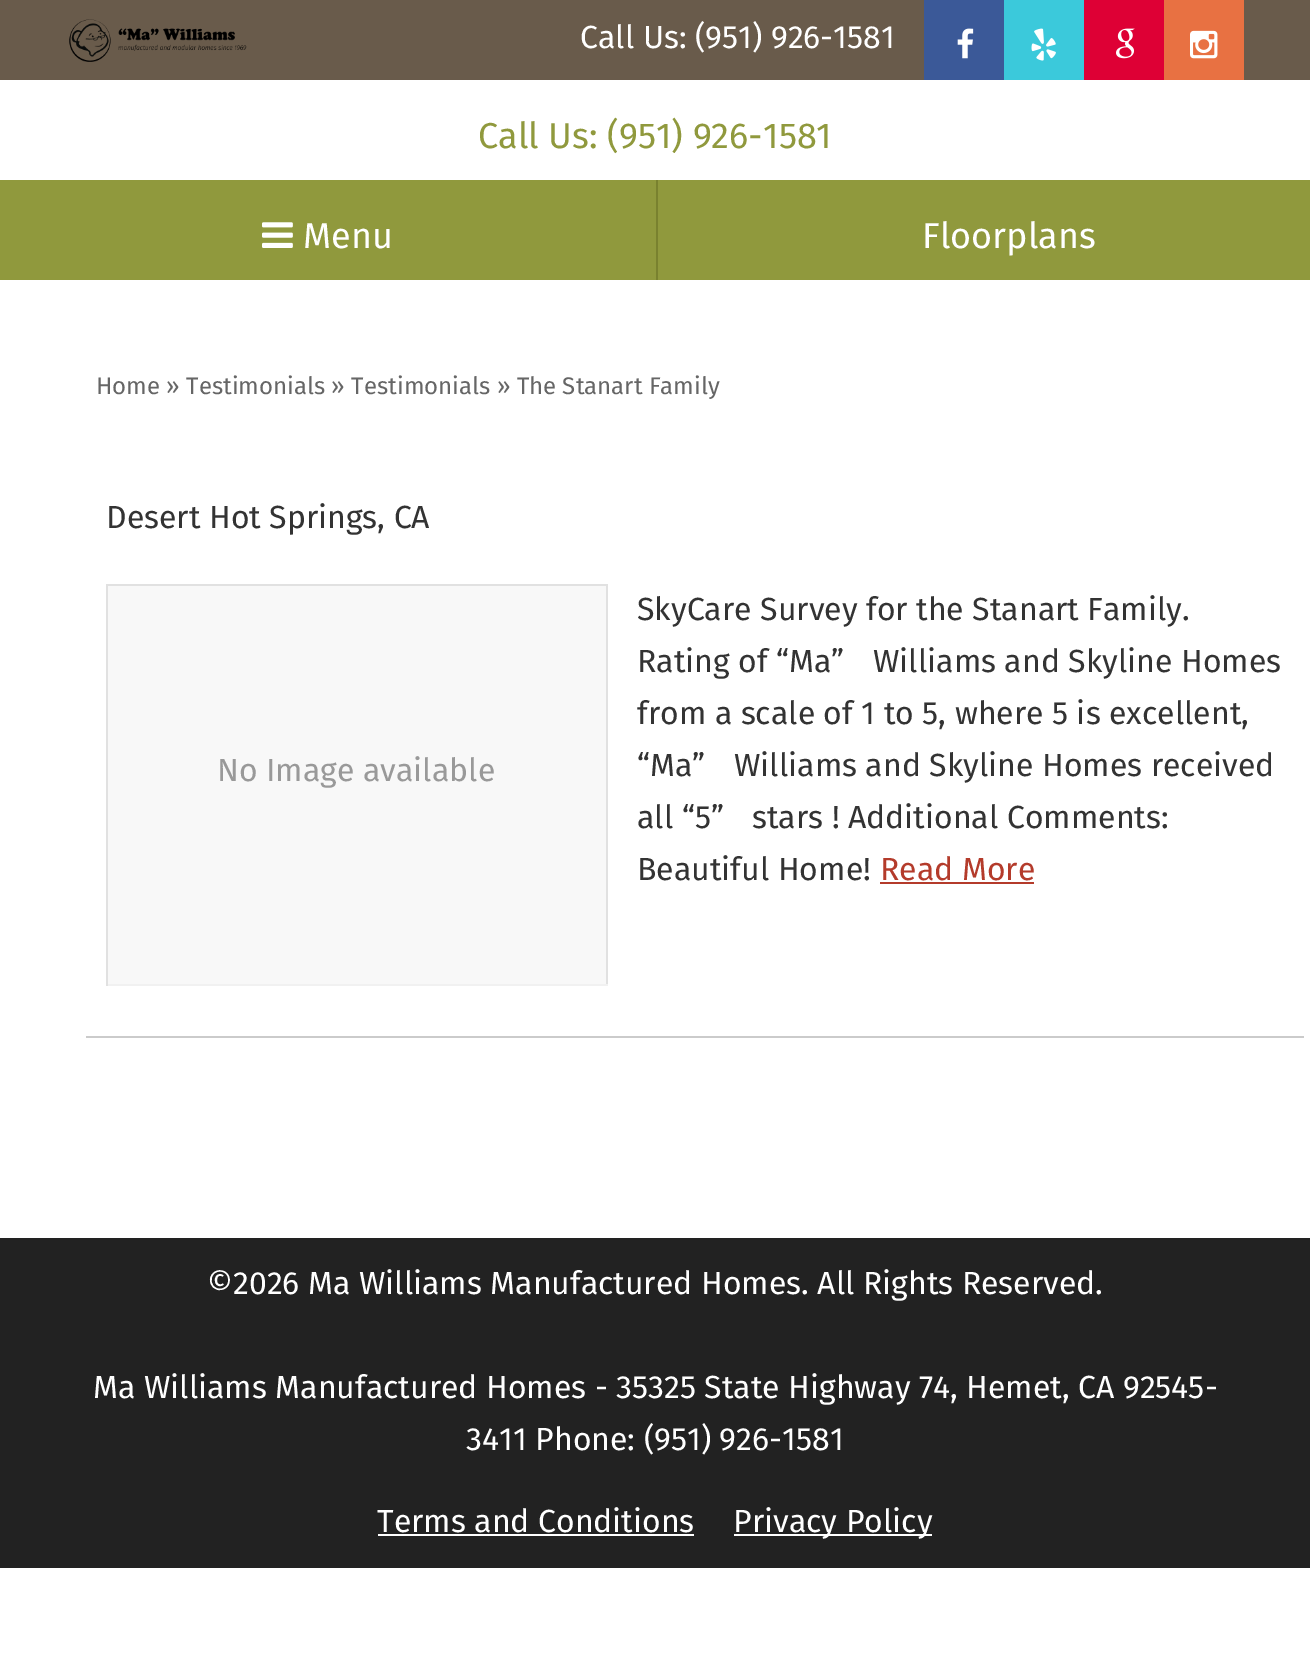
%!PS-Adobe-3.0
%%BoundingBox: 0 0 1310 1670
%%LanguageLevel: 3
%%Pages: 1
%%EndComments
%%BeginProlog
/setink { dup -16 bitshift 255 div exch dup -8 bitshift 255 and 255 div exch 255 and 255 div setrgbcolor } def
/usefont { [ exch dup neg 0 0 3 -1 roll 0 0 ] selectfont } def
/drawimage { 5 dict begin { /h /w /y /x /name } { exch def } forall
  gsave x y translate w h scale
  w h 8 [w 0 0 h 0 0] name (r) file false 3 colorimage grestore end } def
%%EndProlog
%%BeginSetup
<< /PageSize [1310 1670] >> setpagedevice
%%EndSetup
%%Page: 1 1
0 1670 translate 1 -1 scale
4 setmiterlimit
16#FFFFFF setink
0 0 1310 1670 rectfill
16#695B4B setink
0 0 1310 80 rectfill
(img1.raw) 69 19 178 43 drawimage
/FiraSans-Regular 32 usefont
16#FFFFFF setink
580 48 moveto (Call Us: \(951\) 926-1581) show
16#3B5998 setink
924 0 80 80 rectfill
(img2.raw) 957 28 17 31 drawimage
16#3BC9DB setink
1004 0 80 80 rectfill
(img3.raw) 1031 28 25 33 drawimage
16#DE0035 setink
1084 0 80 80 rectfill
(img4.raw) 1116 28 19 31 drawimage
16#E87142 setink
1164 0 80 80 rectfill
(img5.raw) 1190 30 28 29 drawimage
/FiraSans-Regular 36 usefont
16#90993D setink
478 148 moveto (Call Us: \(951\) 926-1581) show
0 180 1310 100 rectfill
16#79812F setink
656 180 2 100 rectfill
(img6.raw) 262 222 31 26 drawimage
16#FFFFFF setink
303 248 moveto (Menu) show
922 248 moveto (Floorplans) show
/FiraSans-Regular 24 usefont
16#666666 setink
96 394 moveto (Home » Testimonials » Testimonials » The Stanart Family) show
16#CBCBCB setink
86 1036 1218 2 rectfill
/FiraSans-Regular 32 usefont
16#333333 setink
106 528 moveto (Desert Hot Springs, CA) show
[
    [108 586 498 398 16#F8F8F8]
    [106 584 502 2 16#E1E1E1]
    [606 584 2 402 16#E1E1E1]
    [106 984 502 2 16#F1F1F1]
    [106 584 2 402 16#E1E1E1]
] { aload pop setink rectfill } forall
16#999999 setink
217 781 moveto (No Image available) show
16#333333 setink
[
    [(SkyCare Survey for the Stanart Family.) 637 620]
    [(Rating of “Ma”) 637 672]
    [(Williams and Skyline Homes) 873 672]
    [(from a scale of 1 to 5, where 5 is excellent,) 637 724]
    [(“Ma”) 637 776]
    [(Williams and Skyline Homes received) 734 776]
    [(all “5”) 637 828]
    [(stars ! Additional Comments:) 752 828]
    [(Beautiful Home!) 637 880]
] { aload pop moveto show } forall
16#B43B2B setink
880 880 moveto (Read More) show
880 882 154 2 rectfill
16#222222 setink
0 1238 1310 330 rectfill
16#FFFFFF setink
[
    [(©2026 Ma Williams Manufactured Homes. All Rights Reserved.) 207 1294]
    [(Ma Williams Manufactured Homes - 35325 State Highway 74, Hemet, CA 92545-) 93 1398]
    [(3411 Phone: \(951\) 926-1581) 466 1450]
    [(Terms and Conditions) 377 1532]
] { aload pop moveto show } forall
378 1534 316 2 rectfill
734 1534 198 2 rectfill
733 1532 moveto (Privacy Policy) show
showpage
%%EOF
